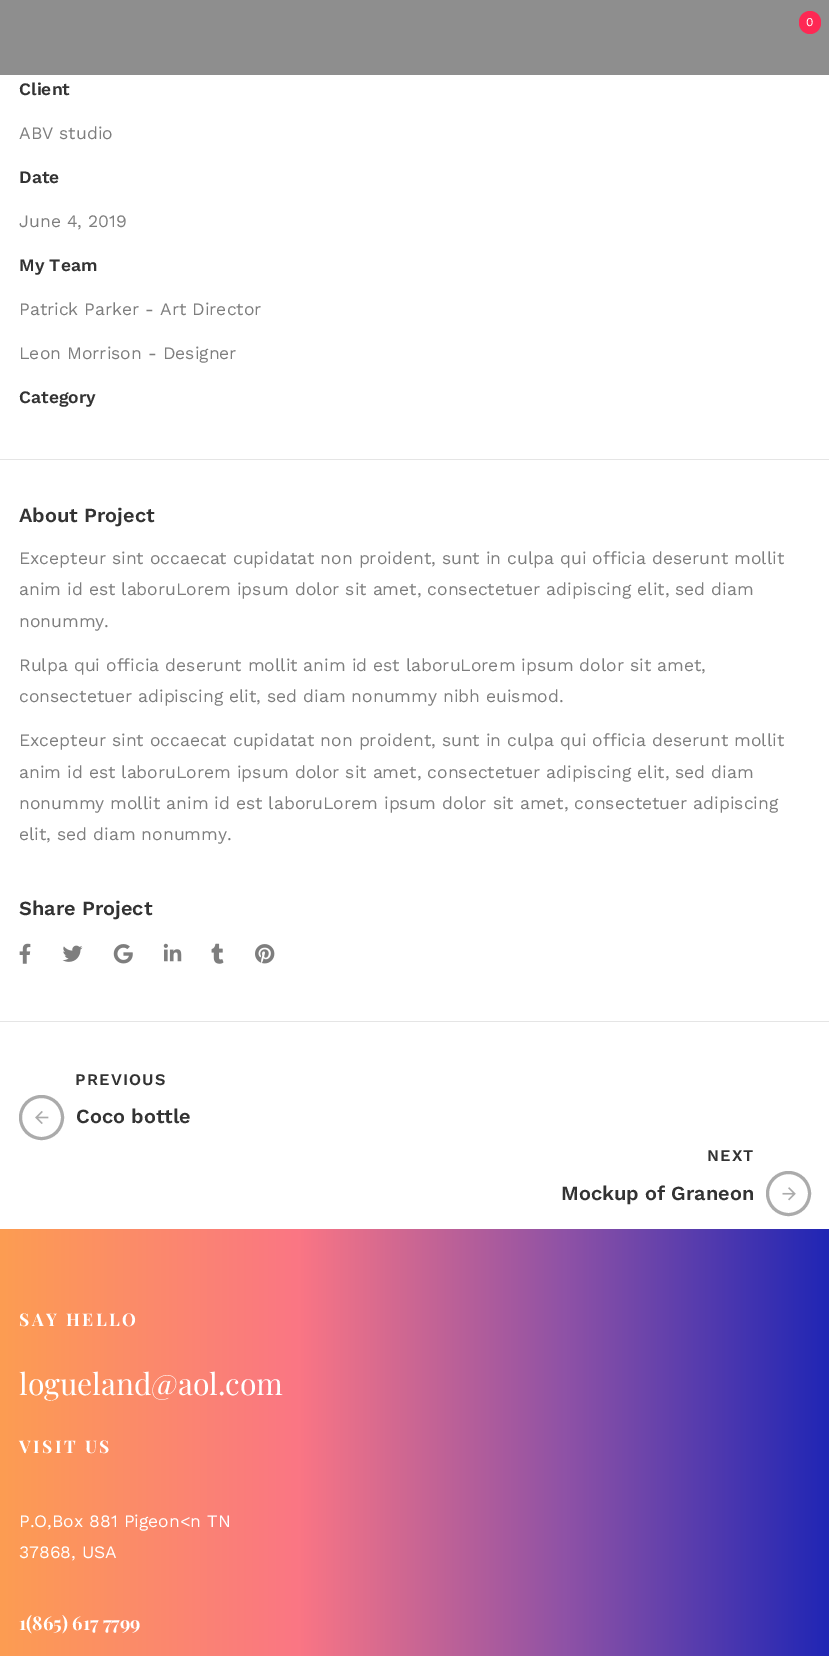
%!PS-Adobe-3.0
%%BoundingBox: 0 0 829 1656
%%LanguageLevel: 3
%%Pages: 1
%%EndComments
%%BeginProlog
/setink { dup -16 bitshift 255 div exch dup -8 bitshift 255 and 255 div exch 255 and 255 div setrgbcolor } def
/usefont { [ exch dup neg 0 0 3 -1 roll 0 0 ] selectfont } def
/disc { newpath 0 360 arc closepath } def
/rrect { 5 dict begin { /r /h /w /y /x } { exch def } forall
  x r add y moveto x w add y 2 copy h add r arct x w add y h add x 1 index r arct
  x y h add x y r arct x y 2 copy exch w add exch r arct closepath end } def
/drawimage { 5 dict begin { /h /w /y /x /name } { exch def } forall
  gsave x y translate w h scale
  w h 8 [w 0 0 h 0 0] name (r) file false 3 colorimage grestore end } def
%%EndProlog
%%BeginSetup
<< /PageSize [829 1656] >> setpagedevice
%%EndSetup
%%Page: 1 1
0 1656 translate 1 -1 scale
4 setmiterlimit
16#FFFFFF setink
0 0 829 1656 rectfill
16#8E8E8E setink
0 0 829 75 rectfill
16#FE2854 setink
799 11 22 23 11 rrect fill
/WorkSans-Regular 12 usefont
16#FFFFFF setink
806 26 moveto (0) show
16#E5E5E5 setink
0 459 829 1 rectfill
/WorkSans-SemiBold 17.5 usefont
16#333333 setink
19 95 moveto (Client) show
/WorkSans-Regular 17.5 usefont
16#7E7E7E setink
19 139 moveto (ABV studio) show
/WorkSans-SemiBold 17.5 usefont
16#333333 setink
19 183 moveto (Date) show
/WorkSans-Regular 17.5 usefont
16#7E7E7E setink
19 227 moveto (June 4, 2019) show
/WorkSans-SemiBold 17.5 usefont
16#333333 setink
19 271 moveto (My Team) show
/WorkSans-Regular 17.5 usefont
16#7E7E7E setink
19 315 moveto (Patrick Parker - Art Director) show
19 359 moveto (Leon Morrison - Designer) show
/WorkSans-SemiBold 17.5 usefont
16#333333 setink
19 403 moveto (Category) show
/WorkSans-SemiBold 20 usefont
19 522 moveto (About Project) show
/WorkSans-Regular 17.5 usefont
16#7E7E7E setink
[
    [(Excepteur sint occaecat cupidatat non proident, sunt in culpa qui officia deserunt mollit) 19 564]
    [(anim id est laboruLorem ipsum dolor sit amet, consectetuer adipiscing elit, sed diam) 19 595]
    [(nonummy.) 19 627]
    [(Rulpa qui officia deserunt mollit anim id est laboruLorem ipsum dolor sit amet,) 19 671]
    [(consectetuer adipiscing elit, sed diam nonummy nibh euismod.) 19 702]
    [(Excepteur sint occaecat cupidatat non proident, sunt in culpa qui officia deserunt mollit) 19 746]
    [(anim id est laboruLorem ipsum dolor sit amet, consectetuer adipiscing elit, sed diam) 19 778]
    [(nonummy mollit anim id est laboruLorem ipsum dolor sit amet, consectetuer adipiscing) 19 809]
    [(elit, sed diam nonummy.) 19 840]
] { aload pop moveto show } forall
/WorkSans-SemiBold 20 usefont
16#333333 setink
19 915 moveto (Share Project) show
(img1.raw) 19 943 12 21 drawimage
(img2.raw) 62 945 21 17 drawimage
(img3.raw) 113 944 20 20 drawimage
(img4.raw) 163 943 19 19 drawimage
(img5.raw) 211 943 13 21 drawimage
(img6.raw) 255 944 20 20 drawimage
16#E5E5E5 setink
0 1021 829 1 rectfill
/WorkSans-SemiBold 16.25 usefont
16#333333 setink
75 1085 moveto 1.25 0 (PREVIOUS) ashow
16#ABABAB setink
3 setlinewidth
41.5 1117.5 21 disc stroke
(img7.raw) 35 1111 14 13 drawimage
/WorkSans-SemiBold 20 usefont
16#333333 setink
76 1123 moveto (Coco bottle) show
/WorkSans-SemiBold 16.25 usefont
707 1161 moveto 1.25 0 (NEXT) ashow
/WorkSans-SemiBold 20 usefont
561 1200 moveto (Mockup of Graneon) show
16#ABABAB setink
788.5 1193.5 21 disc stroke
(img8.raw) 782 1187 14 14 drawimage
gsave 0 1229 moveto 829 1229 lineto 829 1656 lineto 0 1656 lineto closepath clip newpath
<< /ShadingType 2 /ColorSpace /DeviceRGB /Coords [0 1617 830 1617] /Extend [true true] /Function << /FunctionType 3 /Domain [0 1] /Functions [<< /FunctionType 2 /Domain [0 1] /C0 [0.992 0.616 0.322] /C1 [0.98 0.463 0.518] /N 1 >> << /FunctionType 2 /Domain [0 1] /C0 [0.98 0.463 0.518] /C1 [0.561 0.322 0.651] /N 1 >> << /FunctionType 2 /Domain [0 1] /C0 [0.561 0.322 0.651] /C1 [0.122 0.149 0.71] /N 1 >>] /Bounds [0.36 0.68] /Encode [0 1 0 1 0 1] >> >> shfill grestore
/PlayfairDisplay-Bold 17.5 usefont
16#FFFFFF setink
19 1326 moveto 2.5 0 (SAY HELLO) ashow
/PlayfairDisplay-Regular 30 usefont
19 1395 moveto (logueland@aol.com) show
/PlayfairDisplay-Bold 17.5 usefont
19 1453 moveto 2.5 0 (VISIT US) ashow
/WorkSans-Regular 17.5 usefont
19 1527 moveto (P.O,Box 881 Pigeon<n TN) show
19 1558 moveto (37868, USA) show
/PlayfairDisplay-Bold 18.75 usefont
19 1630 moveto (1\(865\) 617 7799) show
showpage
%%EOF
